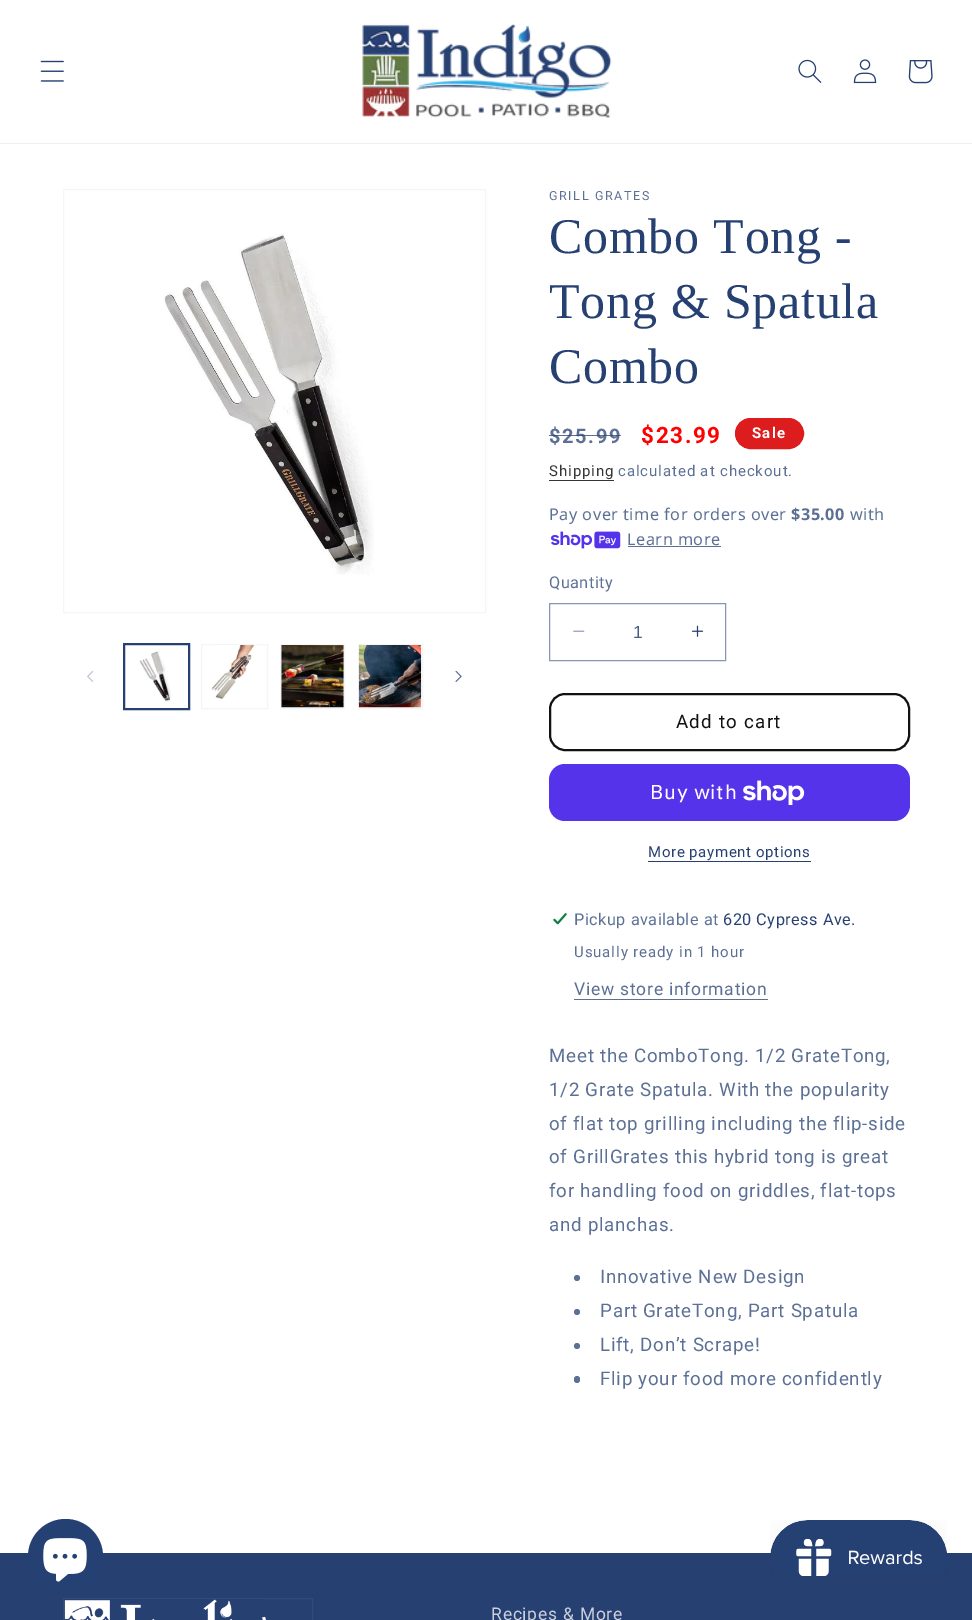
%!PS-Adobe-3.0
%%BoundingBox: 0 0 972 1620
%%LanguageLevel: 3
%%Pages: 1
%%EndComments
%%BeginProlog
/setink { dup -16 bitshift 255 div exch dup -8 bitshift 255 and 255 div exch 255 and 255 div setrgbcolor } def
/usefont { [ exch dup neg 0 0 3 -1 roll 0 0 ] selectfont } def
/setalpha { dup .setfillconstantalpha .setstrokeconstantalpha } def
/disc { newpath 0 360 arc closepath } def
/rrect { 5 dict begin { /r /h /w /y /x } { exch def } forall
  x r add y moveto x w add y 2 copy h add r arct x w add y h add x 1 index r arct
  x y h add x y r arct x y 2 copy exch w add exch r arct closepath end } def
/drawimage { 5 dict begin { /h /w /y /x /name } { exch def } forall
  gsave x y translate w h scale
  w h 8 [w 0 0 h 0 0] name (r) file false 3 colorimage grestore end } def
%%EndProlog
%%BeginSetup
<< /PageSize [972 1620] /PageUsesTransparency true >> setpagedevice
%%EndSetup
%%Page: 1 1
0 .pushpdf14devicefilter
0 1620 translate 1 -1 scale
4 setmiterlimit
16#FFFFFF setink
0 0 972 1620 rectfill
16#EEF0F4 setink
0 143 972 1 rectfill
(img1.raw) 40 60 24 22 drawimage
(img2.raw) 362 23 250 95 drawimage
(img3.raw) 798 59 24 24 drawimage
(img4.raw) 853 59 24 25 drawimage
(img5.raw) 908 60 25 24 drawimage
16#F4F5F8 setink
63.5 189.5 422 423 rectstroke
(img6.raw) 164 233 210 342 drawimage
(img7.raw) 87 670 7 12 drawimage
16#264072 setink
123.5 643.5 66 66 rectstroke
124.5 644.5 64 64 rectstroke
(img8.raw) 139 651 32 51 drawimage
16#F4F5F8 setink
201.5 644.5 66 64 rectstroke
(img9.raw) 211 645 45 54 drawimage
280.5 644.5 64 64 rectstroke
(img10.raw) 281 645 63 63 drawimage
358.5 644.5 64 64 rectstroke
(img11.raw) 358 645 64 63 drawimage
(img12.raw) 455 670 7 12 drawimage
/Roboto-Regular 12.5 usefont
16#5C7095 setink
549 200 moveto 1.6 0 (GRILL GRATES) ashow
/LiberationSerif-Regular 50 usefont
16#264072 setink
549 253 moveto 0.75 0 (Combo Tong -) ashow
549 318 moveto 0.75 0 (Tong & Spatula) ashow
549 383 moveto 0.75 0 (Combo) ashow
/Roboto-Bold 20 usefont
16#5C7095 setink
549 443 moveto 1.6 0 ($25.99) ashow
0.75 setalpha
16#264072 setink
549 435 72 1 rectfill
/Roboto-Bold 22.5 usefont
1 setalpha
16#FF0000 setink
641 443 moveto 1.6 0 ($23.99) ashow
16#DD1D1D setink
735.5 418.5 68 30 15 rrect gsave fill grestore
stroke
/Roboto-Bold 15 usefont
16#FFFFFF setink
752 438 moveto 1.25 0 (Sale) ashow
/Roboto-Regular 15 usefont
16#363636 setink
549 476 moveto 0.9 0 (Shipping) ashow
549 480 65 1 rectfill
16#5C7095 setink
618 476 moveto 0.9 0 (calculated at checkout.) ashow
/NotoSans-Regular 16.25 usefont
549 520 moveto 0.5 0 (Pay over time for orders over) ashow
/NotoSans-Bold 16.25 usefont
791 520 moveto 0.5 0 ($35.00) ashow
/NotoSans-Regular 16.25 usefont
850 520 moveto 0.5 0 (with) ashow
(img13.raw) 551 531 70 18 drawimage
627 545 moveto 0.5 0 (Learn more) ashow
628 546 93 1 rectfill
/Roboto-Regular 16.25 usefont
549 588 moveto 0.5 0 (Quantity) ashow
(img14.raw) 573 630 12 2 drawimage
(img15.raw) 691 625 13 12 drawimage
16#8896B1 setink
549.5 603.5 176 57 rectstroke
/LiberationSans-Regular 17.5 usefont
16#475D87 setink
633 638 moveto (1) show
16#121212 setink
2 setlinewidth
550 694 359 56 15 rrect stroke
/Roboto-Regular 18.75 usefont
676 728 moveto 1.25 0 (Add to cart) ashow
16#5433EB setink
549 764 361 57 16 rrect fill
/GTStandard-Regular 20 usefont
16#FFFFFF setink
650 799 moveto 0.75 0 (Buy with) ashow
(img16.raw) 743 780 62 25 drawimage
/Roboto-Regular 15 usefont
16#264072 setink
648 857 moveto 0.6 0 (More payment options) ashow
648 861 163 1 rectfill
(img17.raw) 552 912 16 13 drawimage
/Roboto-Regular 16.25 usefont
16#5C7095 setink
574 925 moveto 0.5 0 (Pickup available at) ashow
16#264072 setink
723 925 moveto 0.5 0 (620 Cypress Ave.) ashow
/Roboto-Regular 15 usefont
16#5C7095 setink
574 957 moveto 0.9 0 (Usually ready in 1 hour) ashow
/Roboto-Regular 17.5 usefont
574 995 moveto 0.75 0 (View store information) ashow
574 999 194 1 rectfill
/Roboto-Regular 18.75 usefont
549 1062 moveto 0.75 0 (Meet the ComboTong. 1/2 GrateTong,) ashow
549 1096 moveto 0.75 0 (1/2 Grate Spatula. With the popularity) ashow
549 1130 moveto 0.75 0 (of flat top grilling including the flip-side) ashow
549 1163 moveto 0.75 0 (of GrillGrates this hybrid tong is great) ashow
549 1197 moveto 0.75 0 (for handling food on griddles, flat-tops) ashow
549 1231 moveto 0.75 0 (and planchas.) ashow
577 1278 3 disc fill
600 1283 moveto 0.75 0 (Innovative New Design) ashow
577 1312 3 disc fill
600 1317 moveto 0.75 0 (Part GrateTong, Part Spatula) ashow
577 1346 3 disc fill
600 1351 moveto 0.75 0 (Lift, Don’t Scrape!) ashow
574 1376 6 7 3 rrect fill
600 1385 moveto 0.75 0 (Flip your food more confidently) ashow
16#264072 setink
0 1553 972 67 rectfill
16#254072 setink
65.5 1556.5 37.5 disc fill
(img18.raw) 43 1538 44 44 drawimage
(img19.raw) 770 1520 177 56 drawimage
16#314A79 setink
1 setlinewidth
63.5 1598.5 249 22 rectstroke
(img20.raw) 64 1599 202 21 drawimage
/Roboto-Regular 17.5 usefont
16#C9CFDC setink
491 1620 moveto 0.75 0 (Recipes & More) ashow
.poppdf14devicefilter showpage
%%EOF
